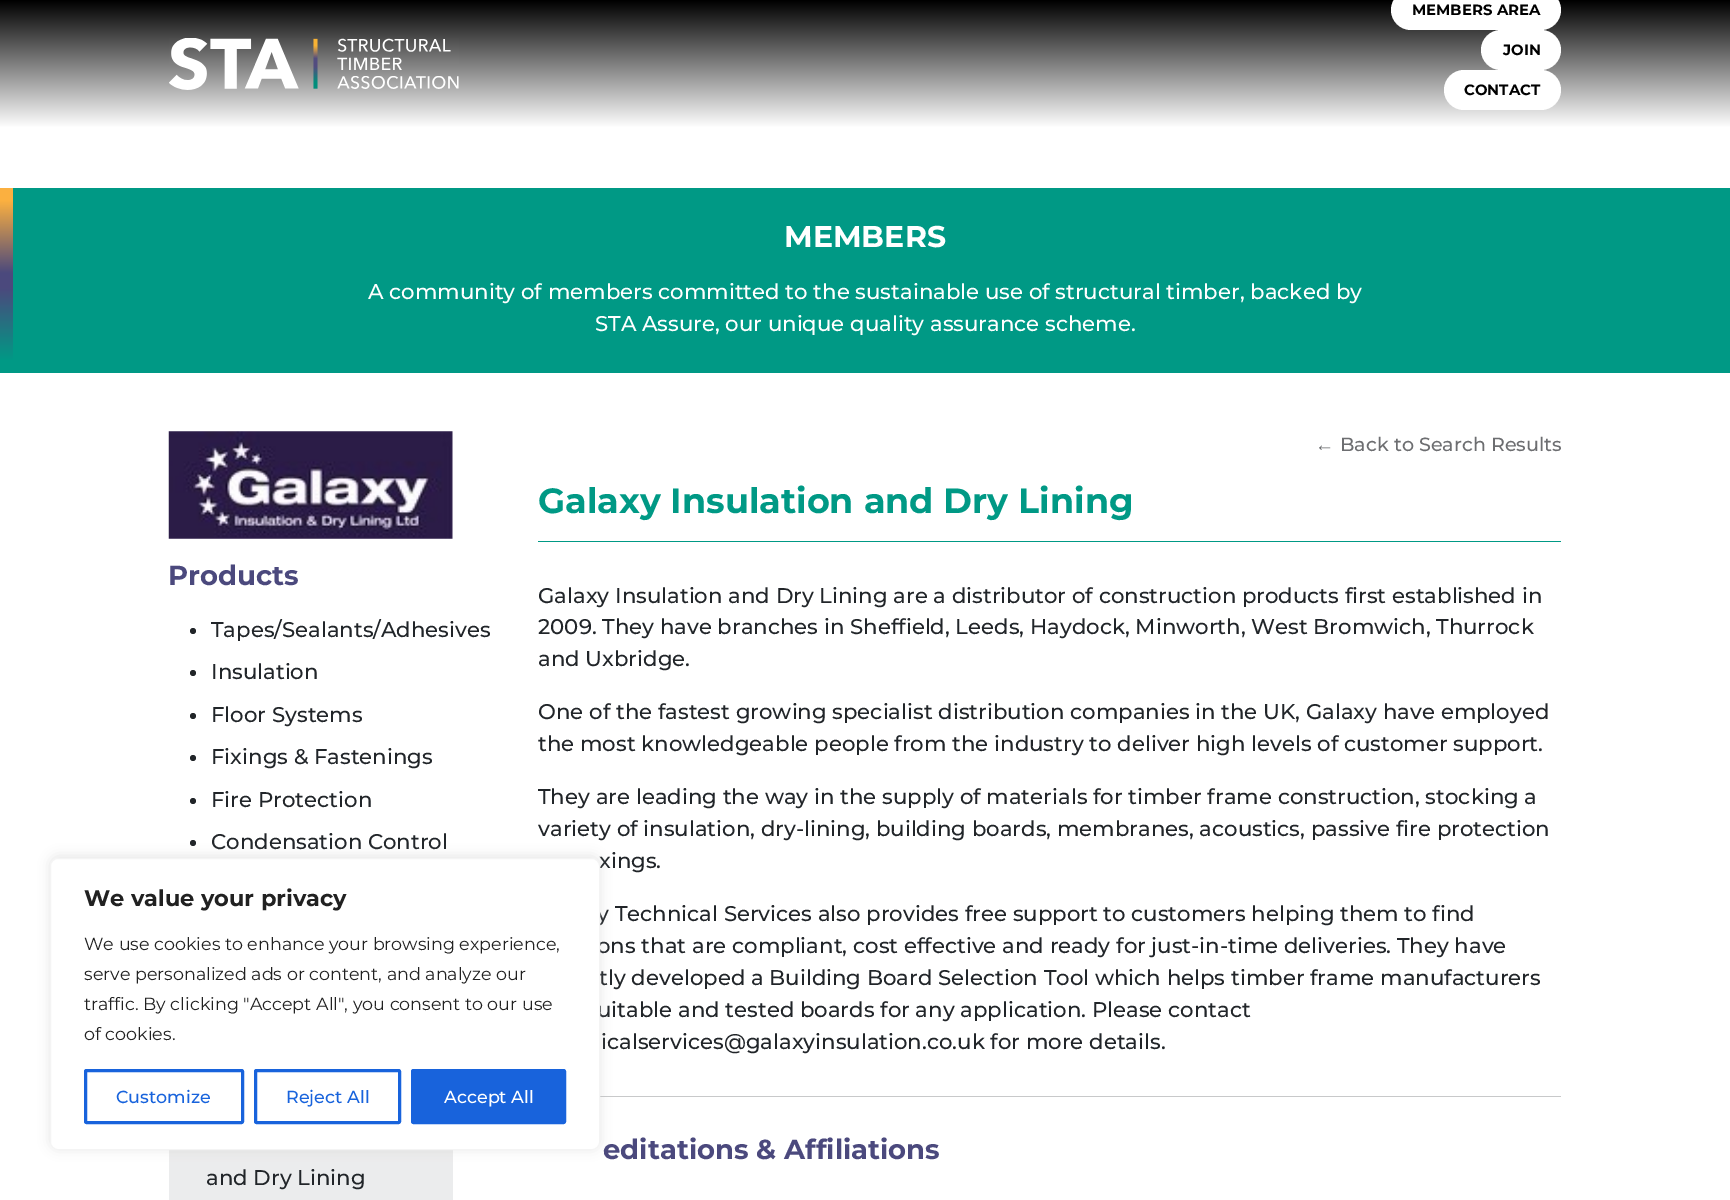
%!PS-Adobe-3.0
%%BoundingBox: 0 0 1730 1200
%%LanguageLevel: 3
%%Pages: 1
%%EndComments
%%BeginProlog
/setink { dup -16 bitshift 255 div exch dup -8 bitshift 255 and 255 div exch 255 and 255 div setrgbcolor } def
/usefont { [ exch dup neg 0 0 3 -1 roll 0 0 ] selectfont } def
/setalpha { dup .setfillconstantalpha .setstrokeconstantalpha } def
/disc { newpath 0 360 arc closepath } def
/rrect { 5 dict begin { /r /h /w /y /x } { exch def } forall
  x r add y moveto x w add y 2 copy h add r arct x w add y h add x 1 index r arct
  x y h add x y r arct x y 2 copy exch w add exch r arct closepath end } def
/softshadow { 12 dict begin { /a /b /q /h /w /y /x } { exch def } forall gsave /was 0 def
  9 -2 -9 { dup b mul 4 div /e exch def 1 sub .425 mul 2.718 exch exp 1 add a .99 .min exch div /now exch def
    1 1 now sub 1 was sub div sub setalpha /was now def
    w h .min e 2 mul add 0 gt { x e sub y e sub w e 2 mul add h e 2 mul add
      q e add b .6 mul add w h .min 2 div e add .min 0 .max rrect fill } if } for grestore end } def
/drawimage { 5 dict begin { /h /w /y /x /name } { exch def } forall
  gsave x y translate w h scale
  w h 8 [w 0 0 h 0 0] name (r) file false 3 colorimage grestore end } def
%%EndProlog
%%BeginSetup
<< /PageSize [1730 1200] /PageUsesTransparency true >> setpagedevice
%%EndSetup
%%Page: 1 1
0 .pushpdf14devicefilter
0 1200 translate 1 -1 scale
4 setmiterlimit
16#FFFFFF setink
0 0 1730 1200 rectfill
gsave 0 0 moveto 1730 0 lineto 1730 127 lineto 0 127 lineto closepath clip newpath
<< /ShadingType 2 /ColorSpace /DeviceRGB /Coords [865 0 865 128] /Extend [true true] /Function << /FunctionType 2 /Domain [0 1] /C0 [0 0 0] /C1 [1 1 1] /N 1 >> >> shfill grestore
(img1.raw) 169 38 290 52 drawimage
1391 -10 170 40 20 rrect fill
/Montserrat-Bold 14.9 usefont
16#000000 setink
1412 15 moveto (MEMBERS AREA) show
16#FFFFFF setink
1481 30 80 40 20 rrect fill
16#000000 setink
1503 55 moveto (JOIN) show
16#FFFFFF setink
1444 70 117 40 20 rrect fill
16#000000 setink
1464 95 moveto (CONTACT) show
16#009985 setink
13 188 1717 185 rectfill
gsave 0 188 moveto 13 188 lineto 13 373 lineto 0 373 lineto closepath clip newpath
<< /ShadingType 2 /ColorSpace /DeviceRGB /Coords [6.2 188 6.3 373] /Extend [true true] /Function << /FunctionType 3 /Domain [0 1] /Functions [<< /FunctionType 2 /Domain [0 1] /C0 [0.984 0.69 0.251] /C1 [0.984 0.69 0.251] /N 1 >> << /FunctionType 2 /Domain [0 1] /C0 [0.984 0.69 0.251] /C1 [0.294 0.286 0.49] /N 1 >> << /FunctionType 2 /Domain [0 1] /C0 [0.294 0.286 0.49] /C1 [0.294 0.286 0.49] /N 1 >> << /FunctionType 2 /Domain [0 1] /C0 [0.294 0.286 0.49] /C1 [0 0.6 0.522] /N 1 >> << /FunctionType 2 /Domain [0 1] /C0 [0 0.6 0.522] /C1 [0 0.6 0.522] /N 1 >>] /Bounds [0.07 0.46 0.54 0.93] /Encode [0 1 0 1 0 1 0 1 0 1] >> >> shfill grestore
/Montserrat-Bold 30 usefont
16#FFFFFF setink
784 247 moveto (MEMBERS) show
/Montserrat-Medium 21.25 usefont
368 299 moveto (A community of members committed to the sustainable use of structural timber, backed by) show
595 331 moveto (STA Assure, our unique quality assurance scheme.) show
(img2.raw) 168 431 285 108 drawimage
/Montserrat-Bold 27.5 usefont
16#4B497D setink
168 585 moveto (Products) show
16#212529 setink
193 631 3 disc fill
/Montserrat-Medium 21.25 usefont
211 637 moveto (Tapes/Sealants/Adhesives) show
193 673 3 disc fill
211 679 moveto (Insulation) show
193 716 3 disc fill
211 722 moveto (Floor Systems) show
193 758 3 disc fill
211 764 moveto (Fixings & Fastenings) show
193 801 3 disc fill
211 807 moveto (Fire Protection) show
193 843 3 disc fill
211 849 moveto (Condensation Control) show
16#EBECED setink
169 1150 284 50 rectfill
16#212529 setink
206 1185 moveto (and Dry Lining) show
/LiberationSans-Regular 19.1 usefont
16#6D6E71 setink
1315 451 moveto (←) show
/Montserrat-Medium 19.1 usefont
1340 451 moveto (Back to Search Results) show
16#009985 setink
538 541 1023 1 rectfill
/Montserrat-Bold 35 usefont
538 513 moveto (Galaxy Insulation and Dry Lining) show
/Montserrat-Medium 21.25 usefont
16#212529 setink
[
    [(Galaxy Insulation and Dry Lining are a distributor of construction products first established in) 538 603]
    [(2009. They have branches in Sheffield, Leeds, Haydock, Minworth, West Bromwich, Thurrock) 538 634]
    [(and Uxbridge.) 538 666]
    [(One of the fastest growing specialist distribution companies in the UK, Galaxy have employed) 538 719]
    [(the most knowledgeable people from the industry to deliver high levels of customer support.) 538 751]
    [(They are leading the way in the supply of materials for timber frame construction, stocking a) 538 804]
    [(variety of insulation, dry-lining, building boards, membranes, acoustics, passive fire protection) 538 836]
    [(xings.) 599 868]
    [(y Technical Services also provides free support to customers helping them to find) 597 921]
    [(ons that are compliant, cost effective and ready for just-in-time deliveries. They have) 597 953]
    [(tly developed a Building Board Selection Tool which helps timber frame manufacturers) 599 985]
    [(uitable and tested boards for any application. Please contact) 597 1017]
    [(icalservices@galaxyinsulation.co.uk for more details.) 601 1049]
] { aload pop moveto show } forall
16#C8C9CA setink
600 1096 961 1 rectfill
/Montserrat-Bold 27.5 usefont
16#4B497D setink
603 1159 moveto (editations & Affiliations) show
16#ACABAB setink
50 856 550 293 8 6 0.3 softshadow
16#FFFFFF setink
50.5 858.5 549 291 7.5 rrect gsave fill grestore
16#F4F4F4 setink
stroke
/Montserrat-Bold 22.5 usefont
16#212121 setink
84 906 moveto (We value your privacy) show
/Montserrat-Regular 17.5 usefont
[
    [(We use cookies to enhance your browsing experience,) 84 950]
    [(serve personalized ads or content, and analyze our) 84 980]
    [(traffic. By clicking "Accept All", you consent to our use) 84 1010]
    [(of cookies.) 84 1040]
] { aload pop moveto show } forall
16#1863DC setink
3 setlinewidth
85.5 1070.5 157 52 1 rrect stroke
/Montserrat-Medium 17.5 usefont
116 1103 moveto (Customize) show
255.5 1070.5 144 52 1 rrect stroke
286 1103 moveto (Reject All) show
412.5 1070.5 152 52 1 rrect gsave fill grestore
stroke
16#FFFFFF setink
444 1103 moveto (Accept All) show
.poppdf14devicefilter showpage
%%EOF
